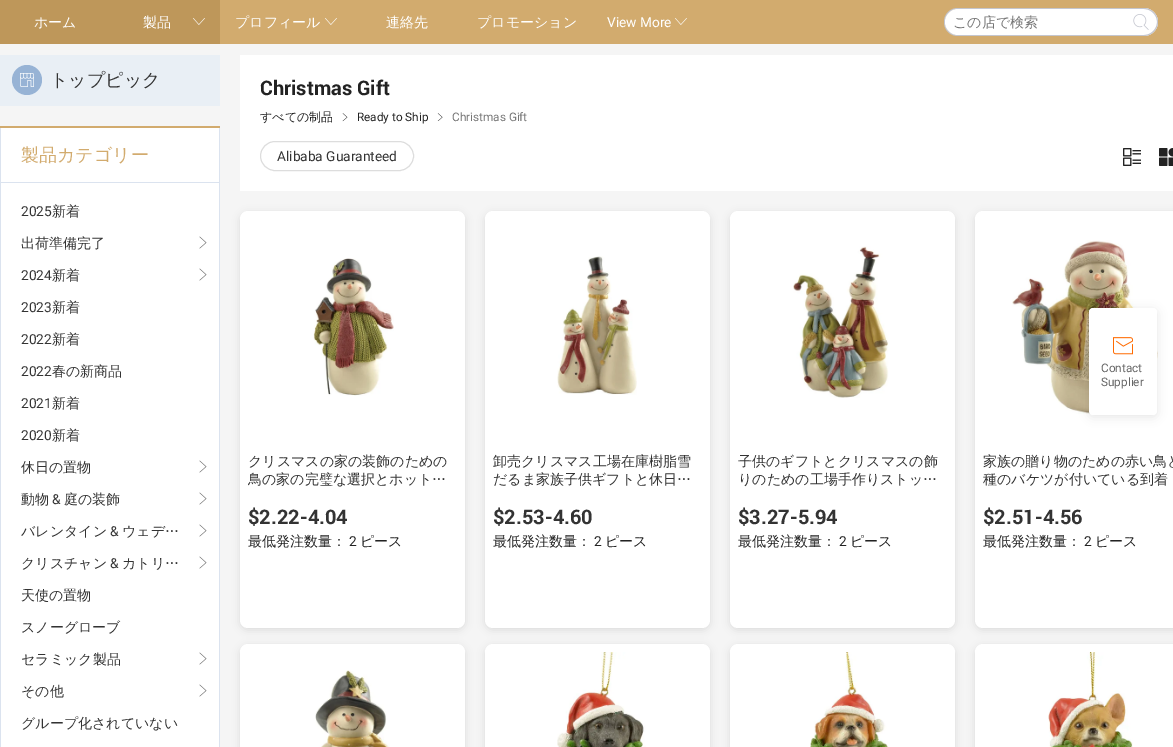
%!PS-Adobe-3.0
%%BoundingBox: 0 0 1173 747
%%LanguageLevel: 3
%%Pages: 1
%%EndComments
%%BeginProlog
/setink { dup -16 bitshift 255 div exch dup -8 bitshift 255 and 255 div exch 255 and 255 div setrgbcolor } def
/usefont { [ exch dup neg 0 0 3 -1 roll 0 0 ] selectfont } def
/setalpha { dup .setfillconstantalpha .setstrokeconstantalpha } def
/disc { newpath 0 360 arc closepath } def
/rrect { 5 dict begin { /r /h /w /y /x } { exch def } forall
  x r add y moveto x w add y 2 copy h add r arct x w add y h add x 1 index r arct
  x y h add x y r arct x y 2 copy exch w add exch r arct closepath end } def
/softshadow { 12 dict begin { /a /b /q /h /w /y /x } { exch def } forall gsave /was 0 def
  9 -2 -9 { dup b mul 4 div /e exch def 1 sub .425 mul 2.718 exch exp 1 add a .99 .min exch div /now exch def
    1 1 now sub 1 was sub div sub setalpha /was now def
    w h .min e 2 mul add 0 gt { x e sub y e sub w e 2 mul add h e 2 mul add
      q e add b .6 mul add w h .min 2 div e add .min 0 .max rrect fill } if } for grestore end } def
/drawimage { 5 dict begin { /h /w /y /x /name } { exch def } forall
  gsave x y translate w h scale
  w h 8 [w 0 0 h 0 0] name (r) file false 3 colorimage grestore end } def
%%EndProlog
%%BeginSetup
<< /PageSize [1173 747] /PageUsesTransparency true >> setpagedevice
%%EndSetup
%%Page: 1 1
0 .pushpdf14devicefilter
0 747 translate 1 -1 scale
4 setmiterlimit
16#F5F5F5 setink
0 0 1173 747 rectfill
16#D2AB6E setink
220 0 953 44 rectfill
16#BE975A setink
0 0 220 44 rectfill
/WenQuanYiZenHei-Medium 14 usefont
16#FFFFFF setink
34 27 moveto (ホーム) show
143 27 moveto (製品) show
(img1.raw) 193 18 12 7 drawimage
235 27 moveto (プロフィール) show
(img2.raw) 325 18 12 7 drawimage
386 27 moveto (連絡先) show
477 27 moveto (プロモーション) show
/Roboto-Regular 14 usefont
607 27 moveto (View More) show
(img2.raw) 675 18 12 7 drawimage
16#C4C6CF setink
958 8 moveto 1125 8 lineto 1125 36 lineto 958 36 lineto 950 36 944 30 944 22 curveto 944 14 950 8 958 8 curveto closepath 958 9 moveto 1125 9 lineto 1125 35 lineto 958 35 lineto 951 35 945 29 945 22 curveto 945 15 951 9 958 9 curveto closepath eofill
16#FFFFFF setink
958 9 moveto 1124.5 9 lineto 1125 9 1125 9 1125 9.5 curveto 1125 34.5 lineto 1125 35 1125 35 1124.5 35 curveto 958 35 lineto 951 35 945 29 945 22 curveto 945 15 951 9 958 9 curveto closepath fill
/WenQuanYiZenHei-Medium 14 usefont
16#767676 setink
953 27 moveto (この店で検索) show
16#FFFFFF setink
1125 8 moveto 1144 8 lineto 1151.5 8 1158 14.5 1158 22 curveto 1158 29.5 1151.5 36 1144 36 curveto 1125 36 lineto closepath fill
16#C4C6CF setink
1125 8 moveto 1144 8 lineto 1151.5 8 1158 14.5 1158 22 curveto 1158 29.5 1151.5 36 1144 36 curveto 1125 36 lineto closepath 1125 9 moveto 1144 9 lineto 1151 9 1157 15 1157 22 curveto 1157 29 1151 35 1144 35 curveto 1125 35 lineto closepath eofill
(img3.raw) 1133 14 16 16 drawimage
16#E9EFF5 setink
0 55 220 51 rectfill
16#97B3D5 setink
27 80 15 disc fill
(img4.raw) 20 73 14 14 drawimage
/WenQuanYiZenHei-Medium 18 usefont
16#333333 setink
50 86 moveto (トップピック) show
[
    [1 128 218 619 16#FFFFFF]
    [0 126 220 2 16#D2AB6E]
    [219 128 1 619 16#DBE3EF]
    [0 128 1 619 16#DBE3EF]
    [1 182 218 1 16#DBE3EF]
] { aload pop setink rectfill } forall
16#D2AB6E setink
21 161 moveto (製品カテゴリー) show
/Roboto-Regular 14 usefont
16#333333 setink
21 216 moveto (2025) show
/WenQuanYiZenHei-Medium 14 usefont
52 216 moveto (新着) show
21 248 moveto (出荷準備完了) show
(img5.raw) 199 236 8 13 drawimage
/Roboto-Regular 14 usefont
21 280 moveto (2024) show
/WenQuanYiZenHei-Medium 14 usefont
52 280 moveto (新着) show
(img5.raw) 199 268 8 13 drawimage
/Roboto-Regular 14 usefont
21 312 moveto (2023) show
/WenQuanYiZenHei-Medium 14 usefont
52 312 moveto (新着) show
/Roboto-Regular 14 usefont
21 344 moveto (2022) show
/WenQuanYiZenHei-Medium 14 usefont
52 344 moveto (新着) show
/Roboto-Regular 14 usefont
21 376 moveto (2022) show
/WenQuanYiZenHei-Medium 14 usefont
52 376 moveto (春の新商品) show
/Roboto-Regular 14 usefont
21 408 moveto (2021) show
/WenQuanYiZenHei-Medium 14 usefont
52 408 moveto (新着) show
/Roboto-Regular 14 usefont
21 440 moveto (2020) show
/WenQuanYiZenHei-Medium 14 usefont
52 440 moveto (新着) show
21 472 moveto (休日の置物) show
(img5.raw) 199 460 8 13 drawimage
21 504 moveto (動物) show
/Roboto-Regular 14 usefont
52 504 moveto (&) show
/WenQuanYiZenHei-Medium 14 usefont
64 504 moveto (庭の装飾) show
(img5.raw) 199 492 8 13 drawimage
21 536 moveto (バレンタイン) show
/Roboto-Regular 14 usefont
110 536 moveto (&) show
/WenQuanYiZenHei-Medium 14 usefont
122 536 moveto (ウェデ…) show
(img5.raw) 199 524 8 13 drawimage
21 568 moveto (クリスチャン) show
/Roboto-Regular 14 usefont
110 568 moveto (&) show
/WenQuanYiZenHei-Medium 14 usefont
122 568 moveto (カトリ…) show
(img5.raw) 199 556 8 13 drawimage
[
    [(天使の置物) 21 600]
    [(スノーグローブ) 21 632]
    [(セラミック製品) 21 664]
] { aload pop moveto show } forall
(img5.raw) 199 652 8 13 drawimage
21 696 moveto (その他) show
(img5.raw) 199 684 8 13 drawimage
21 728 moveto (グループ化されていない) show
16#FFFFFF setink
240 55 933 136 rectfill
/Roboto-Bold 20 usefont
16#222222 setink
260 95 moveto (Christmas Gift) show
/WenQuanYiZenHei-Medium 12 usefont
260 121 moveto (すべての制品) show
(img6.raw) 342 113 6 9 drawimage
/Roboto-Regular 12 usefont
357 121 moveto (Ready to Ship) show
(img7.raw) 437 113 6 8 drawimage
16#767676 setink
452 121 moveto (Christmas Gift) show
16#DDDDDD setink
260.5 141.5 153 29 14.5 rrect stroke
/Roboto-Regular 14 usefont
16#333333 setink
277 161 moveto (Alibaba Guaranteed) show
(img8.raw) 1123 148 18 18 drawimage
(img9.raw) 1159 148 14 18 drawimage
16#000000 setink
240 213 225 417 8 4 0.1 softshadow
16#FFFFFF setink
240 211 225 417 8 rrect fill
(img10.raw) 313 258 81 138 drawimage
/WenQuanYiZenHei-Medium 14 usefont
16#333333 setink
248 466 moveto (クリスマスの家の装飾のための) show
248 484 moveto (鳥の家の完璧な選択とホット…) show
/Roboto-Bold 20 usefont
248 524 moveto ($2.22-4.04) show
/WenQuanYiZenHei-Medium 14 usefont
16#222222 setink
248 546 moveto (最低発注数量：) show
/Roboto-Regular 14 usefont
349 546 moveto (2) show
/WenQuanYiZenHei-Medium 14 usefont
360 546 moveto (ピース) show
16#000000 setink
485 213 225 417 8 4 0.1 softshadow
16#FFFFFF setink
485 211 225 417 8 rrect fill
(img11.raw) 557 256 80 139 drawimage
16#333333 setink
493 466 moveto (卸売クリスマス工場在庫樹脂雪) show
493 484 moveto (だるま家族子供ギフトと休日…) show
/Roboto-Bold 20 usefont
493 524 moveto ($2.53-4.60) show
/WenQuanYiZenHei-Medium 14 usefont
16#222222 setink
493 546 moveto (最低発注数量：) show
/Roboto-Regular 14 usefont
594 546 moveto (2) show
/WenQuanYiZenHei-Medium 14 usefont
605 546 moveto (ピース) show
16#000000 setink
730 213 225 417 8 4 0.1 softshadow
16#FFFFFF setink
730 211 225 417 8 rrect fill
(img12.raw) 793 246 96 152 drawimage
16#333333 setink
738 466 moveto (子供のギフトとクリスマスの飾) show
738 484 moveto (りのための工場手作りストッ…) show
/Roboto-Bold 20 usefont
738 524 moveto ($3.27-5.94) show
/WenQuanYiZenHei-Medium 14 usefont
16#222222 setink
738 546 moveto (最低発注数量：) show
/Roboto-Regular 14 usefont
839 546 moveto (2) show
/WenQuanYiZenHei-Medium 14 usefont
850 546 moveto (ピース) show
16#000000 setink
975 213 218 417 8 4 0.1 softshadow
16#FFFFFF setink
975 211 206 417 8 rrect fill
(img13.raw) 1012 240 146 174 drawimage
16#333333 setink
983 466 moveto (家族の贈り物のための赤い鳥と) show
983 484 moveto (種のバケツが付いている到着) show
/Roboto-Bold 20 usefont
983 524 moveto ($2.51-4.56) show
/WenQuanYiZenHei-Medium 14 usefont
16#222222 setink
983 546 moveto (最低発注数量：) show
/Roboto-Regular 14 usefont
1084 546 moveto (2) show
/WenQuanYiZenHei-Medium 14 usefont
1095 546 moveto (ピース) show
16#000000 setink
240 646 225 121 8 4 0.1 softshadow
16#FFFFFF setink
240 644 225 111 8 rrect fill
(img14.raw) 315 670 75 77 drawimage
16#000000 setink
485 646 225 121 8 4 0.1 softshadow
16#FFFFFF setink
485 644 225 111 8 rrect fill
(img15.raw) 557 652 89 95 drawimage
16#000000 setink
730 646 225 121 8 4 0.1 softshadow
16#FFFFFF setink
730 644 225 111 8 rrect fill
(img16.raw) 810 652 79 95 drawimage
16#000000 setink
975 646 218 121 8 4 0.1 softshadow
16#FFFFFF setink
975 644 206 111 8 rrect fill
(img17.raw) 1048 652 85 95 drawimage
16#000000 setink
1089 310 68 107 4 5 0.1 softshadow
16#FFFFFF setink
1089 308 68 107 4 rrect fill
(img18.raw) 1113 337 20 18 drawimage
/Roboto-Regular 12 usefont
16#666666 setink
1101 372 moveto (Contact) show
1101 386 moveto (Supplier) show
.poppdf14devicefilter showpage
%%EOF
